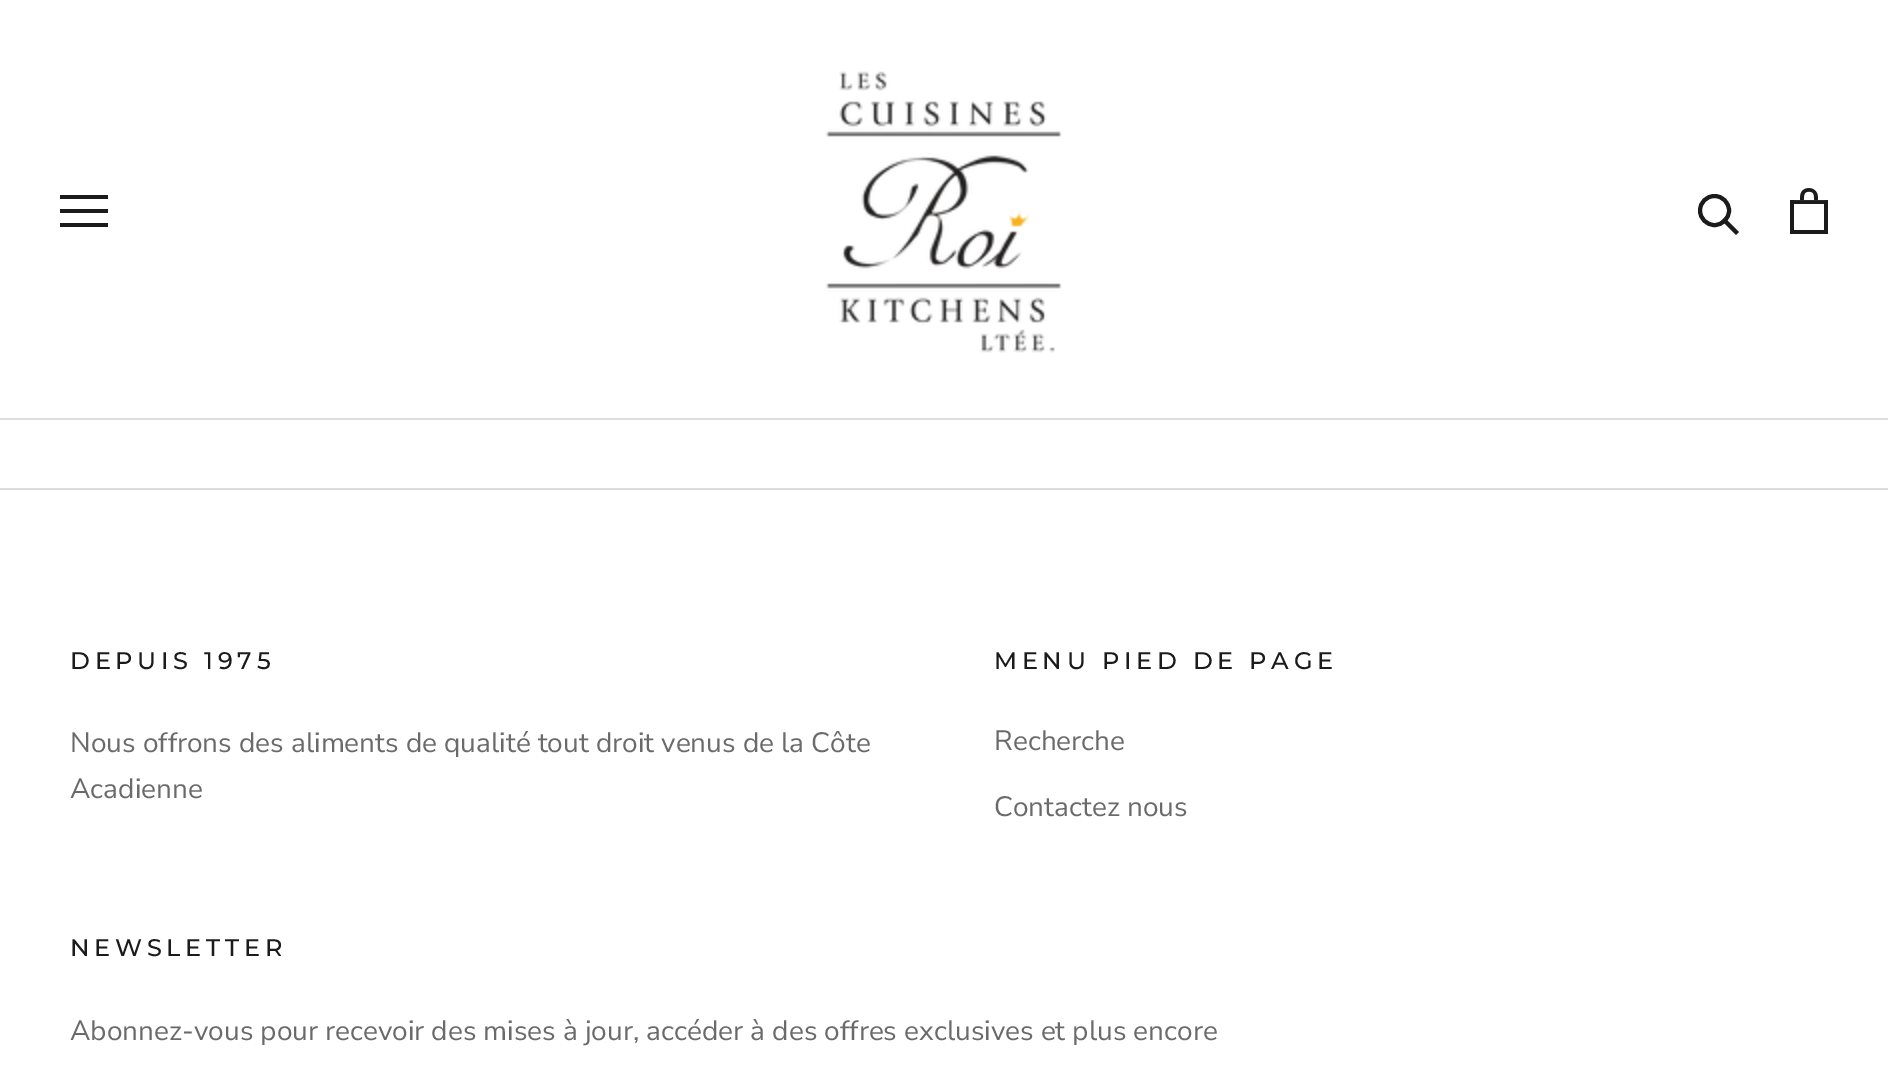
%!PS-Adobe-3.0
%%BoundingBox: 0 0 1888 1085
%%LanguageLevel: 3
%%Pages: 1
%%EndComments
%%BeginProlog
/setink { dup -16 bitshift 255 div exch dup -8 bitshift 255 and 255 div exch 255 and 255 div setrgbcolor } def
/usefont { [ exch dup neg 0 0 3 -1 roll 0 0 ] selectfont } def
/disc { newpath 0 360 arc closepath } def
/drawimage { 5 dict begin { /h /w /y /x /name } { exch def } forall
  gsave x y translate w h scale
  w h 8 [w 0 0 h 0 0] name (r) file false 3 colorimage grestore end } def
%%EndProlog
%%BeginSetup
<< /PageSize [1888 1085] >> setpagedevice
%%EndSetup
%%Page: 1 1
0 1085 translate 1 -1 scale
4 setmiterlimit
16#FFFFFF setink
0 0 1888 1085 rectfill
16#DDDDDD setink
0 418 1888 2 rectfill
16#1C1B1B setink
60 227 moveto 60 223 lineto 108 223 lineto 108 227 lineto closepath 60 209 moveto 108 209 lineto 108 213 lineto 60 213 lineto closepath 60 195 moveto 108 195 lineto 108 199 lineto 60 199 lineto closepath fill
(img1.raw) 825 71 237 282 drawimage
4 setlinewidth
2 setlinecap
1736 232 moveto 1724.5 220.5 lineto stroke
0 setlinecap
1714.5 210.5 14.5 disc stroke
(img2.raw) 1790 188 38 46 drawimage
16#DDDDDD setink
0 488 1888 2 rectfill
/Montserrat-Medium 24 usefont
16#1C1B1B setink
70 669 moveto 4.75 0 (DEPUIS 1975) ashow
/NunitoSans-Regular 28 usefont
16#6A6A6A setink
70 752 moveto (Nous offrons des aliments de qualité tout droit venus de la Côte) show
70 798 moveto (Acadienne) show
/Montserrat-Medium 24 usefont
16#1C1B1B setink
994 669 moveto 4.75 0 (MENU PIED DE PAGE) ashow
/NunitoSans-Regular 28 usefont
16#6A6A6A setink
994 750 moveto (Recherche) show
994 816 moveto (Contactez nous) show
/Montserrat-Medium 24 usefont
16#1C1B1B setink
70 956 moveto 4.75 0 (NEWSLETTER) ashow
/NunitoSans-Regular 28 usefont
16#6A6A6A setink
70 1040 moveto (Abonnez-vous pour recevoir des mises à jour, accéder à des offres exclusives et plus encore) show
showpage
%%EOF
